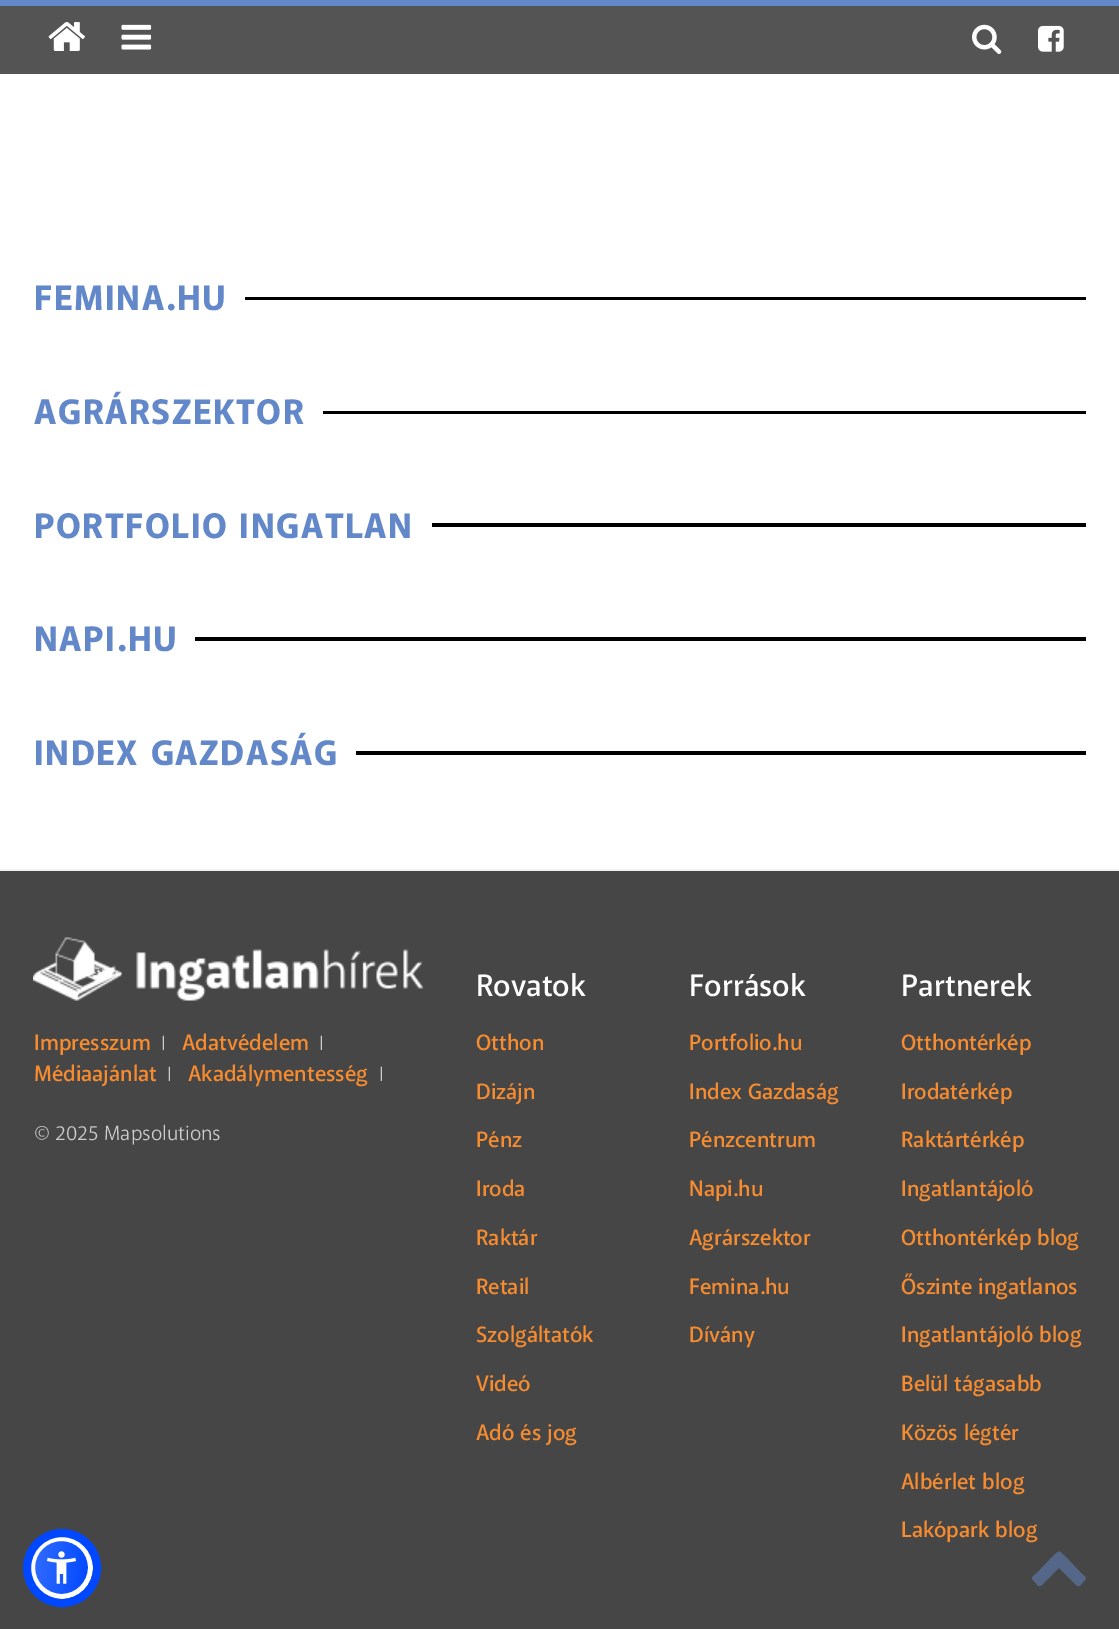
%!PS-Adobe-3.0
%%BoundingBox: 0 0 1119 1629
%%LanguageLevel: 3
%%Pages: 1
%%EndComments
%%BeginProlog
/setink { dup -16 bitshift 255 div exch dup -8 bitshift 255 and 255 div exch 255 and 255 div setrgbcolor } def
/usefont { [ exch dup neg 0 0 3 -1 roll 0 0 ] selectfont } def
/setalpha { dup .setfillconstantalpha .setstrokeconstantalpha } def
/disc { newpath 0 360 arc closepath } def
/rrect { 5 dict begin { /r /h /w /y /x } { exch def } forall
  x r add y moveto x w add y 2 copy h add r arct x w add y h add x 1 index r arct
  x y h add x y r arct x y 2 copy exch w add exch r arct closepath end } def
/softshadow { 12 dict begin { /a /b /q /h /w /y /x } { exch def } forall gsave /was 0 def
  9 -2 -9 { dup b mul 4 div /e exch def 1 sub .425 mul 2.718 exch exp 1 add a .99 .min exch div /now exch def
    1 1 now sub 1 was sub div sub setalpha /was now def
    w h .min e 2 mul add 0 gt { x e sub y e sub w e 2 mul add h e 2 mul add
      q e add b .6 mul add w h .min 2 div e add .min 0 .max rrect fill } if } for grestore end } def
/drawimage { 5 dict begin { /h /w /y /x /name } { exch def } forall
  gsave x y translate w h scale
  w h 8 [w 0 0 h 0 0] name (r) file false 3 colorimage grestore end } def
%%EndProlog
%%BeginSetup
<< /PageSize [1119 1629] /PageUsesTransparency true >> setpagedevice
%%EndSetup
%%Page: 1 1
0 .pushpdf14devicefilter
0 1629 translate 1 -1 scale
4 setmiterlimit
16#FFFFFF setink
0 0 1119 1629 rectfill
16#545454 setink
0 6 1119 68 rectfill
16#6388CA setink
0 0 1119 6 rectfill
(img1.raw) 48 22 37 29 drawimage
(img2.raw) 121 24 31 26 drawimage
(img3.raw) 972 24 30 30 drawimage
(img4.raw) 1038 25 26 27 drawimage
16#000000 setink
245 297 841 3 rectfill
/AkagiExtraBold-ExtraBold 36 usefont
16#6388CA setink
34 310 moveto 1.5 0 (FEMINA.HU) ashow
16#000000 setink
323 411 763 3 rectfill
16#6388CA setink
34 424 moveto 1.5 0 (AGRÁRSZEKTOR) ashow
16#000000 setink
432 523 654 4 rectfill
16#6388CA setink
34 538 moveto 1.5 0 (PORTFOLIO INGATLAN) ashow
16#000000 setink
195 637 891 4 rectfill
16#6388CA setink
34 651 moveto 1.5 0 (NAPI.HU) ashow
16#000000 setink
356 751 730 4 rectfill
16#6388CA setink
34 765 moveto 1.5 0 (INDEX GAZDASÁG) ashow
16#464646 setink
0 871 1119 758 rectfill
16#F2F2F2 setink
0 869 1119 2 rectfill
(img5.raw) 33 937 390 64 drawimage
/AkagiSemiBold-SemiBold 22.5 usefont
16#F68C2F setink
34 1050 moveto (Impresszum) show
/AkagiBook-Regular 21 usefont
16#CCCCCC setink
161 1050 moveto (I) show
/AkagiSemiBold-SemiBold 22.5 usefont
16#F68C2F setink
182 1050 moveto (Adatvédelem) show
/AkagiBook-Regular 21 usefont
16#CCCCCC setink
319 1050 moveto (I) show
/AkagiSemiBold-SemiBold 22.5 usefont
16#F68C2F setink
34 1081 moveto (Médiaajánlat) show
/AkagiBook-Regular 21 usefont
16#CCCCCC setink
167 1081 moveto (I) show
/AkagiSemiBold-SemiBold 22.5 usefont
16#F68C2F setink
188 1081 moveto (Akadálymentesség) show
/AkagiBook-Regular 21 usefont
16#CCCCCC setink
379 1081 moveto (I) show
34 1140 moveto (© 2025 Mapsolutions) show
/AkagiSemiBold-SemiBold 31.5 usefont
16#FFFFFF setink
476 996 moveto (Rovatok) show
/AkagiSemiBold-SemiBold 22.5 usefont
16#F68C2F setink
[
    [(Otthon) 476 1050]
    [(Dizájn) 476 1099]
    [(Pénz) 476 1147]
    [(Iroda) 476 1196]
    [(Raktár) 476 1245]
    [(Retail) 476 1294]
    [(Szolgáltatók) 476 1342]
    [(Videó) 476 1391]
    [(Adó és jog) 476 1440]
] { aload pop moveto show } forall
/AkagiSemiBold-SemiBold 31.5 usefont
16#FFFFFF setink
689 996 moveto (Források) show
/AkagiSemiBold-SemiBold 22.5 usefont
16#F68C2F setink
[
    [(Portfolio.hu) 689 1050]
    [(Index Gazdaság) 689 1099]
    [(Pénzcentrum) 689 1147]
    [(Napi.hu) 689 1196]
    [(Agrárszektor) 689 1245]
    [(Femina.hu) 689 1294]
    [(Dívány) 689 1342]
] { aload pop moveto show } forall
/AkagiSemiBold-SemiBold 31.5 usefont
16#FFFFFF setink
901 996 moveto (Partnerek) show
/AkagiSemiBold-SemiBold 22.5 usefont
16#F68C2F setink
[
    [(Otthontérkép) 901 1050]
    [(Irodatérkép) 901 1099]
    [(Raktártérkép) 901 1147]
    [(Ingatlantájoló) 901 1196]
    [(Otthontérkép blog) 901 1245]
    [(Őszinte ingatlanos) 901 1294]
    [(Ingatlantájoló blog) 901 1342]
    [(Belül tágasabb) 901 1391]
    [(Közös légtér) 901 1440]
    [(Albérlet blog) 901 1489]
    [(Lakópark blog) 901 1537]
] { aload pop moveto show } forall
16#5D6494 setink
30 1539 63 63 31.5 3 0.2 softshadow
gsave
30 1536 63 63 31.5 rrect clip newpath
gsave 35 1541 moveto 89 1541 lineto 89 1595 lineto 35 1595 lineto closepath clip newpath
<< /ShadingType 2 /ColorSpace /DeviceRGB /Coords [32 1564 91 1571] /Extend [true true] /Function << /FunctionType 2 /Domain [0 1] /C0 [0.196 0.424 1] /C1 [0 0.282 1] /N 1 >> >> shfill grestore
grestore
16#FFFFFF setink
5 setlinewidth
61.5 1567.5 29 disc stroke
16#0048FF setink
8 setlinewidth
62 1568 35 disc stroke
(img6.raw) 46 1551 31 33 drawimage
16#556788 setink
1085 1580 moveto 1079 1586 1080 1589 1074 1583 curveto 1059 1568 lineto 1044 1583 lineto 1039 1588 1039 1587 1034 1581 curveto 1030 1578 1033 1576 1037 1573 curveto 1053 1556 lineto 1060 1550 1058 1550 1065 1556 curveto 1081 1573 lineto 1082 1574 1088 1578 1085 1580 curveto closepath fill
.poppdf14devicefilter showpage
%%EOF
